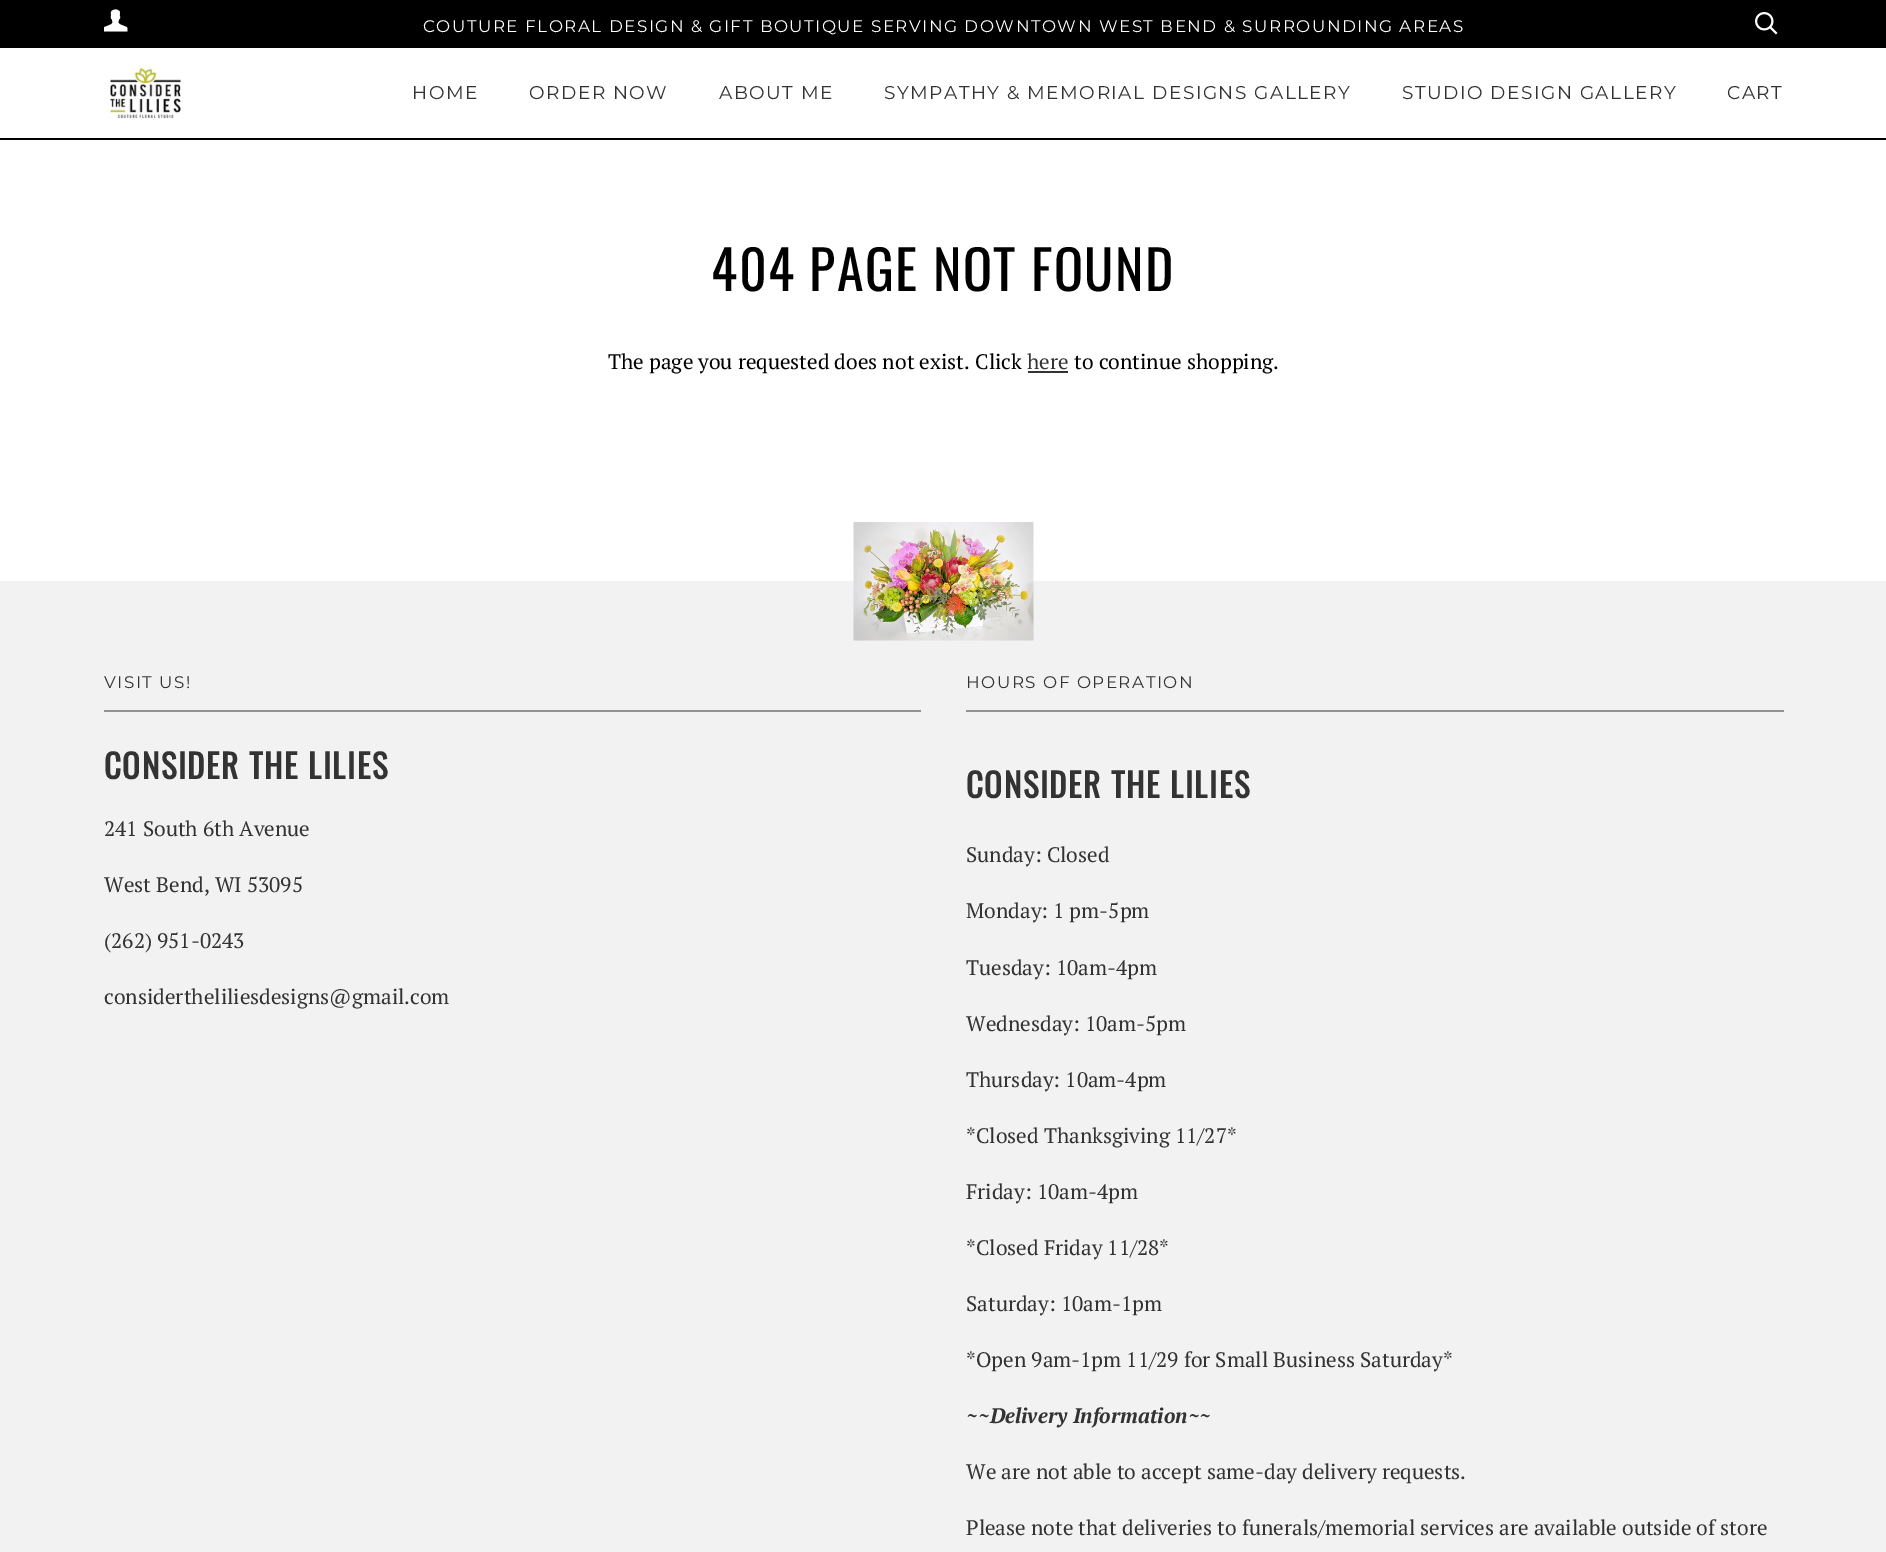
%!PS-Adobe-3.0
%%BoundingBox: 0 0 1886 1552
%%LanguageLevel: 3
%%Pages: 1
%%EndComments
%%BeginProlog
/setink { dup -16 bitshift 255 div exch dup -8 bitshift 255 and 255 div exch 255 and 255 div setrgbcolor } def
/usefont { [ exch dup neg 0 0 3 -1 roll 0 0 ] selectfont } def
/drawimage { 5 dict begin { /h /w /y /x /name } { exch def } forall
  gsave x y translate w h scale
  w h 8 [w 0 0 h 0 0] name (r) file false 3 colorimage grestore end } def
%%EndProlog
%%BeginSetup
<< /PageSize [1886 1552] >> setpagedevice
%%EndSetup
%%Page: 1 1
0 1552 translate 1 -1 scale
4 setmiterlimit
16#FFFFFF setink
0 0 1886 1552 rectfill
16#000000 setink
0 0 1886 48 rectfill
(img1.raw) 104 9 24 23 drawimage
/Montserrat-Thin 16.8 usefont
16#FFFFFF setink
423 32 moveto 1.5 0 (COUTURE FLORAL DESIGN & GIFT BOUTIQUE SERVING DOWNTOWN WEST BEND & SURROUNDING AREAS) ashow
(img2.raw) 1755 12 23 23 drawimage
16#000000 setink
0 138 1886 2 rectfill
(img3.raw) 109 63 72 56 drawimage
/Montserrat-Thin 18.5 usefont
16#333333 setink
412 99 moveto 1.5 0 (HOME) ashow
529 99 moveto 1.5 0 (ORDER NOW) ashow
719 99 moveto 1.5 0 (ABOUT ME) ashow
884 99 moveto 1.5 0 (SYMPATHY & MEMORIAL DESIGNS GALLERY) ashow
1402 99 moveto 1.5 0 (STUDIO DESIGN GALLERY) ashow
1727 99 moveto 1.5 0 (CART) ashow
/Oswald-Regular 54 usefont
16#000000 setink
711 291 moveto 1.5 0 (404 PAGE NOT FOUND) ashow
/PTSerif-Regular 21 usefont
608 369 moveto (The page you requested does not exist. Click) show
16#333333 setink
1027 369 moveto (here) show
1028 371 40 2 rectfill
16#000000 setink
1074 369 moveto (to continue shopping.) show
16#F2F2F2 setink
0 581 1886 971 rectfill
(img4.raw) 853 522 181 119 drawimage
/Montserrat-Thin 16.8 usefont
16#333333 setink
104 688 moveto 1.5 0 (VISIT US!) ashow
16#939393 setink
104 710 817 2 rectfill
/Oswald-Bold 33 usefont
16#333333 setink
104 779 moveto 1.5 0 (CONSIDER THE LILIES) ashow
/PTSerif-Regular 21 usefont
[
    [(241 South 6th Avenue) 104 836]
    [(West Bend, WI 53095) 104 892]
    [(\(262\) 951-0243) 104 948]
    [(considertheliliesdesigns@gmail.com) 104 1004]
] { aload pop moveto show } forall
/Montserrat-Thin 16.8 usefont
966 688 moveto 1.5 0 (HOURS OF OPERATION) ashow
16#939393 setink
966 710 818 2 rectfill
/Oswald-Bold 33 usefont
16#333333 setink
966 798 moveto 1.5 0 (CONSIDER THE LILIES) ashow
/PTSerif-Regular 21 usefont
[
    [(Sunday: Closed) 966 862]
    [(Monday: 1 pm-5pm) 966 918]
    [(Tuesday: 10am-4pm) 966 975]
    [(Wednesday: 10am-5pm) 966 1031]
    [(Thursday: 10am-4pm) 966 1087]
    [(*Closed Thanksgiving 11/27*) 966 1143]
    [(Friday: 10am-4pm) 966 1199]
    [(*Closed Friday 11/28*) 966 1255]
    [(Saturday: 10am-1pm) 966 1311]
    [(*Open 9am-1pm 11/29 for Small Business Saturday*) 966 1367]
] { aload pop moveto show } forall
/PTSerif-BoldItalic 21 usefont
966 1423 moveto (~~Delivery Information~~) show
/PTSerif-Regular 21 usefont
966 1479 moveto (We are not able to accept same-day delivery requests.) show
966 1535 moveto (Please note that deliveries to funerals/memorial services are available outside of store) show
showpage
%%EOF
